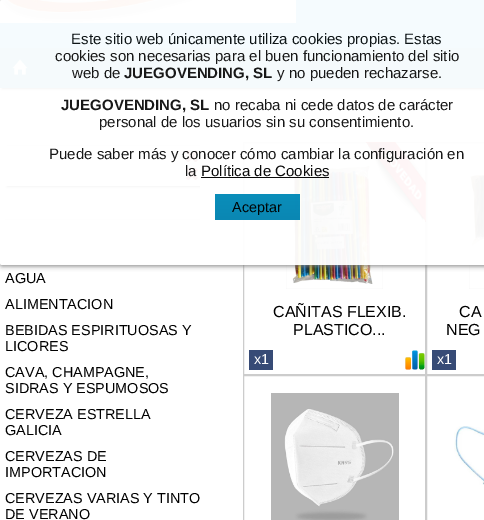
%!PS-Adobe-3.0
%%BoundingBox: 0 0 484 520
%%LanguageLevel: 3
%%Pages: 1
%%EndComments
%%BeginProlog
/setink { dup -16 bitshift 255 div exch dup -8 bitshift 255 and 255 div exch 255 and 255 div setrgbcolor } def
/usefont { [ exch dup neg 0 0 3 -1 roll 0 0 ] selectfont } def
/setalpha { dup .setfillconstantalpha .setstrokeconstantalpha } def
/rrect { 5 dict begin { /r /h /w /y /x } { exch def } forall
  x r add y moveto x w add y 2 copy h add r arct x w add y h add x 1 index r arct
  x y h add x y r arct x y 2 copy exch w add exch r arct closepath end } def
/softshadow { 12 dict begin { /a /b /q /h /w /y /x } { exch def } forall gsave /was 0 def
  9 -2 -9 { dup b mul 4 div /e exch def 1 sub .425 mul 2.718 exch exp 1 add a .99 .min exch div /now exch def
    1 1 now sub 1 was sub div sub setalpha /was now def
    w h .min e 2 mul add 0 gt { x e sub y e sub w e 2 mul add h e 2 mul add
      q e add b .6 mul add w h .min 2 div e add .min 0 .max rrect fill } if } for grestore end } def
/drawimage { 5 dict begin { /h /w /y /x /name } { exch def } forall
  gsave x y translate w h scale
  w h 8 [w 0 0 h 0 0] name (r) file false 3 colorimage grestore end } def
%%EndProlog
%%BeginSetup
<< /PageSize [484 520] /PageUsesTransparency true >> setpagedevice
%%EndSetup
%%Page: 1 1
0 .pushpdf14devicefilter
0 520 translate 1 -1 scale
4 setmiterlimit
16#FFFFFF setink
0 0 484 520 rectfill
16#00A4DE setink
0 0 484 48 rectfill
(img1.raw) 0 0 296 23 drawimage
16#000000 setink
2 53 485 36 0 1 1 softshadow
16#0089B7 setink
0 48 484 40 rectfill
(img2.raw) 12 59 16 16 drawimage
gsave
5 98 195 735 rectclip
16#000000 setink
7 128 195 59 0 1 1 softshadow
grestore
16#FBFBFB setink
5 123 195 63 rectfill
16#DDDDDD setink
7 145 193 1 rectfill
(img3.raw) 186 150 12 12 drawimage
(img4.raw) 186 168 12 12 drawimage
5 219 195 1 rectfill
5 264 195 1 rectfill
16#CCCCCC setink
243.5 142.5 182 232 rectstroke
(img5.raw) 286 159 97 130 drawimage
(img6.raw) 365 142 61 80 drawimage
426.5 142.5 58 232 rectstroke
(img8.raw) 469 159 15 130 drawimage
gsave
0 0 moveto 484 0 lineto 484 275 lineto 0 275 lineto closepath 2 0 moveto 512 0 lineto 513 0 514 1 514 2 curveto 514 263 lineto 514 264 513 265 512 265 curveto 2 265 lineto 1 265 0 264 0 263 curveto 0 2 lineto 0 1 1 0 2 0 curveto closepath eoclip newpath
16#808080 setink
0 1 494 265 2 2.5 0.96 softshadow
grestore
0.96 setalpha
16#FFFFFF setink
0 0 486 265 2 rrect fill
/LiberationSans-Regular 15 usefont
1 setalpha
16#0E1517 setink
71 44 moveto (Este sitio web únicamente utiliza cookies propias. Estas) show
16#181818 setink
55 61 moveto (cookies son necesarias para el buen funcionamiento del sitio) show
72 78 moveto (web de) show
/LiberationSans-Bold 15 usefont
124 78 moveto (JUEGOVENDING, SL) show
/LiberationSans-Regular 15 usefont
277 78 moveto (y no pueden rechazarse.) show
/LiberationSans-Bold 15 usefont
61 110 moveto (JUEGOVENDING, SL) show
/LiberationSans-Regular 15 usefont
[
    [(no recaba ni cede datos de carácter) 214 110]
    [(personal de los usuarios sin su consentimiento.) 99 127]
    [(Puede saber más y conocer cómo cambiar la configuración en) 49 159]
    [(la) 185 176]
] { aload pop moveto show } forall
16#0A0A0A setink
201 176 moveto (Política de Cookies) show
0.96 setalpha
16#000000 setink
201 177 128 1 rectfill
gsave 215 194 moveto 300 194 lineto 300 220 lineto 215 220 lineto closepath clip newpath
<< /ShadingType 2 /ColorSpace /DeviceRGB /Coords [258 194 258 220] /Extend [true true] /Function << /FunctionType 2 /Domain [0 1] /C0 [0 0.537 0.718] /C1 [0 0.51 0.69] /N 1 >> >> shfill grestore
/LiberationSans-Regular 14.4 usefont
1 setalpha
16#000607 setink
232 212 moveto (Aceptar) show
16#000000 setink
[
    [(AGUA) 5 283]
    [(ALIMENTACION) 5 309]
    [(BEBIDAS ESPIRITUOSAS Y) 5 335]
    [(LICORES) 5 351]
    [(CAVA, CHAMPAGNE,) 5 377]
    [(SIDRAS Y ESPUMOSOS) 5 393]
    [(CERVEZA ESTRELLA) 5 419]
    [(GALICIA) 5 435]
    [(CERVEZAS DE) 5 461]
    [(IMPORTACION) 5 477]
    [(CERVEZAS VARIAS Y TINTO) 5 503]
    [(DE VERANO) 5 519]
] { aload pop moveto show } forall
/LiberationSans-Regular 16 usefont
273 317 moveto (CAÑITAS FLEXIB.) show
293 335 moveto (PLASTICO...) show
16#374B76 setink
249 350 24 20 rectfill
/LiberationSans-Regular 14.4 usefont
16#FFFFFF setink
254 364 moveto (x1) show
(img7.raw) 405 350 20 20 drawimage
/LiberationSans-Regular 16 usefont
16#000000 setink
459 317 moveto (CA) show
446 335 moveto (NEG) show
16#374B76 setink
432 350 24 20 rectfill
/LiberationSans-Regular 14.4 usefont
16#FFFFFF setink
437 364 moveto (x1) show
16#CCCCCC setink
243.5 375.5 182 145 rectstroke
(img9.raw) 271 393 128 127 drawimage
426.5 375.5 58 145 rectstroke
(img10.raw) 454 426 30 59 drawimage
.poppdf14devicefilter showpage
%%EOF
